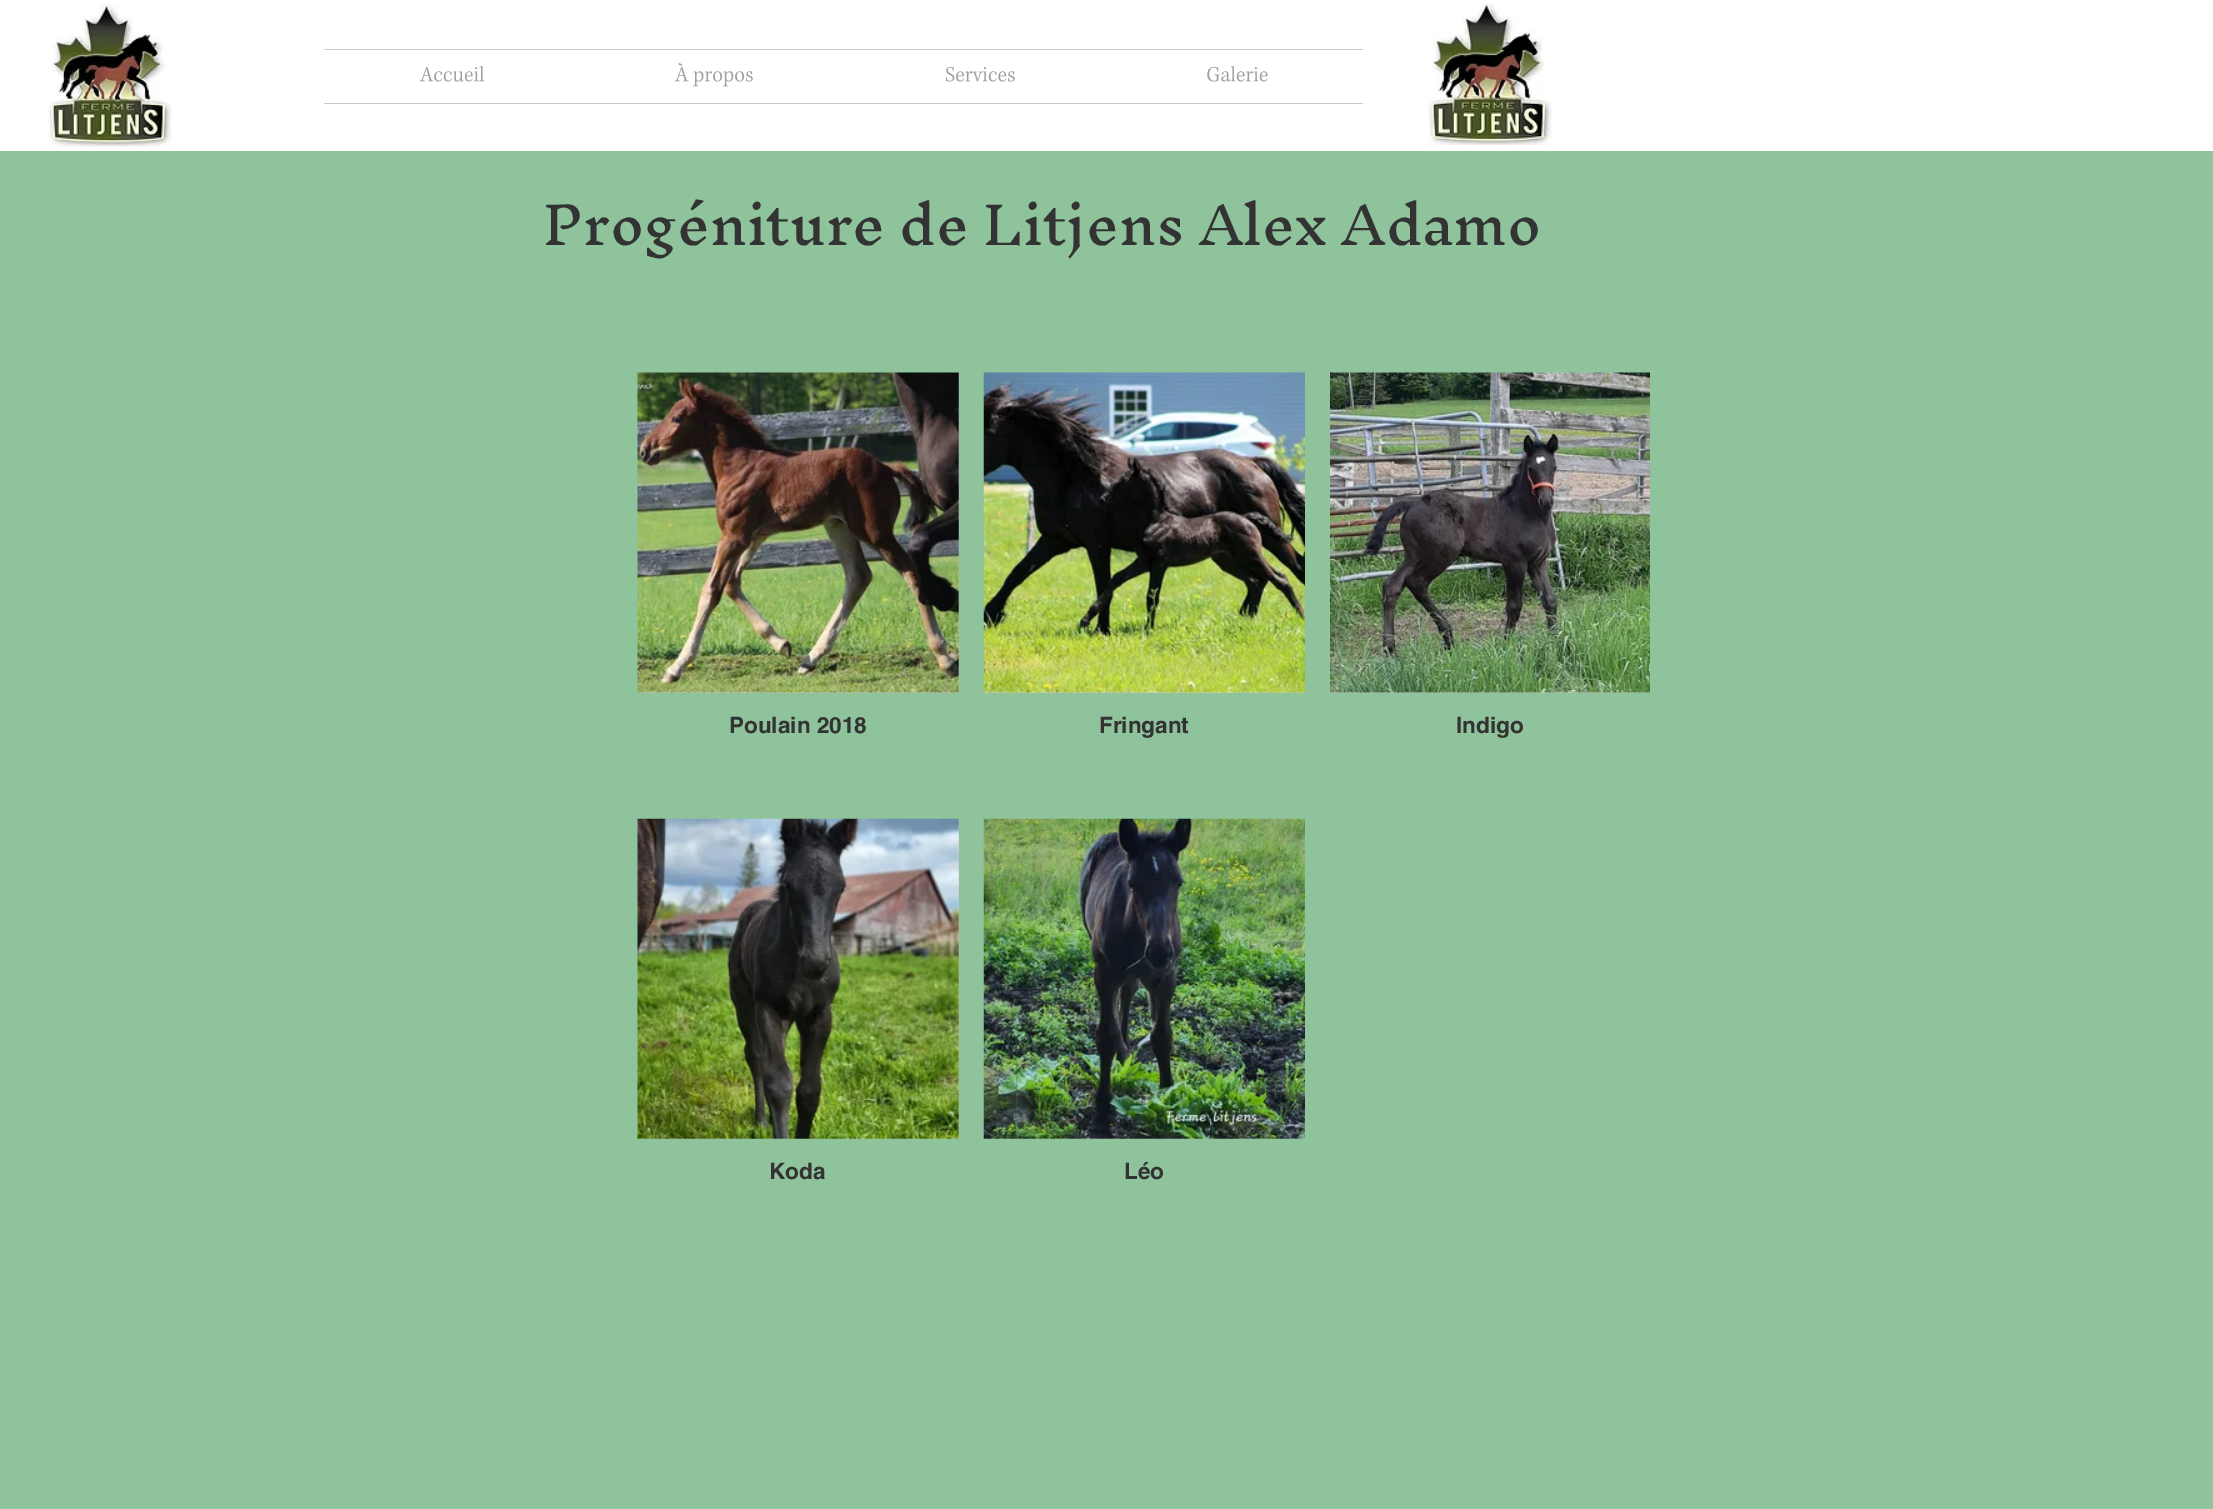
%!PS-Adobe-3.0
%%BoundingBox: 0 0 2213 1509
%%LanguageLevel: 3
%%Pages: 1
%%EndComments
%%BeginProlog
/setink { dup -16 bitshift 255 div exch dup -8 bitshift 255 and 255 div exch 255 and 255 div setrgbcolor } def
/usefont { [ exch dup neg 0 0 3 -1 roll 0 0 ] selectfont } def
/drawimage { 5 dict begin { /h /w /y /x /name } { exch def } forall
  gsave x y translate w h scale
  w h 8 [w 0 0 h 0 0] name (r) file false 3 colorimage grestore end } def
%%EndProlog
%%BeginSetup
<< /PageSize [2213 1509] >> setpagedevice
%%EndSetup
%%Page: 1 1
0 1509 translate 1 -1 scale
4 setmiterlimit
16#8EC39C setink
0 0 2213 1509 rectfill
16#FFFFFF setink
0 0 2213 151 rectfill
(img1.raw) 48 4 125 143 drawimage
16#CACACA setink
324 49 1039 1 rectfill
324 103 1039 1 rectfill
(img2.raw) 419 66 66 16 drawimage
(img3.raw) 674 63 79 24 drawimage
(img4.raw) 946 66 69 16 drawimage
(img5.raw) 1207 66 61 16 drawimage
(img6.raw) 1428 3 125 142 drawimage
/InknutAntiqua-Regular 51.25 usefont
16#333333 setink
543 245 moveto (Progéniture de Litjens Alex Adamo) show
16#C7C7C7 setink
638 373 321 320 rectfill
(img7.raw) 637 372 322 321 drawimage
/helvetica-Bold 22.5 usefont
16#333333 setink
729 733 moveto (Poulain 2018) show
16#C7C7C7 setink
984 692 321 1 rectfill
(img8.raw) 983 372 322 321 drawimage
16#333333 setink
1099 733 moveto (Fringant) show
16#C7C7C7 setink
1330 692 320 1 rectfill
(img9.raw) 1330 372 320 321 drawimage
16#333333 setink
1456 733 moveto (Indigo) show
16#C7C7C7 setink
638 819 321 320 rectfill
(img10.raw) 637 818 322 321 drawimage
16#333333 setink
769 1179 moveto (Koda) show
(img11.raw) 983 818 322 321 drawimage
1124 1179 moveto (Léo) show
showpage
%%EOF
